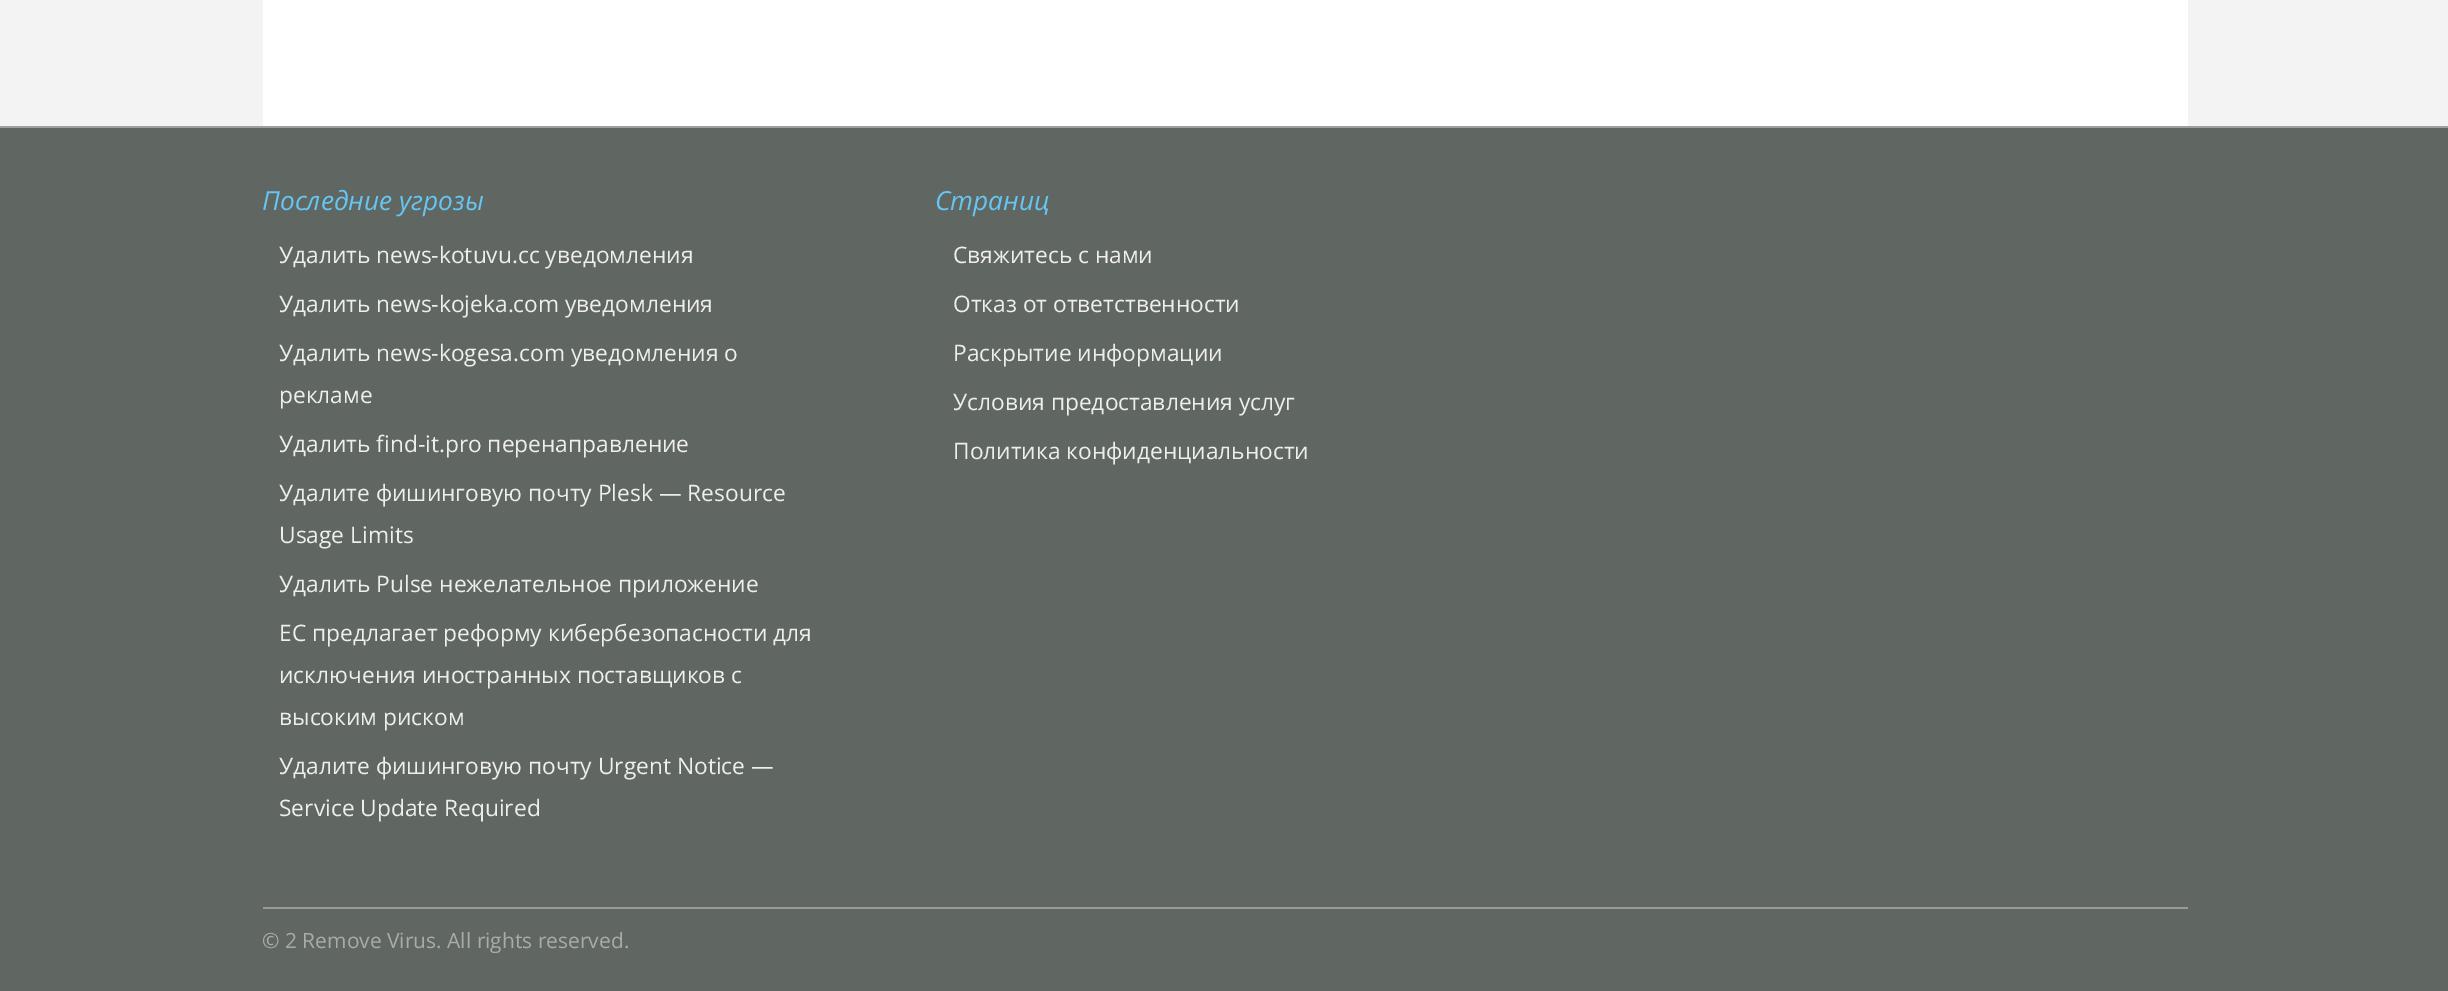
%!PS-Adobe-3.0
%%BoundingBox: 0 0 2448 991
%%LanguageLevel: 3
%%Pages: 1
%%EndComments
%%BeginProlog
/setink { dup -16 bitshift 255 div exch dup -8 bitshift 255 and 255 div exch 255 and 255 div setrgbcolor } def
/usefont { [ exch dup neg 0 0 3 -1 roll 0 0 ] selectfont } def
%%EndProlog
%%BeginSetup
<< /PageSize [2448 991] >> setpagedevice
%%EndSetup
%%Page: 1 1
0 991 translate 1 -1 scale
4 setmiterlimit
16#F3F3F3 setink
0 0 2448 991 rectfill
[
    [263 0 1925 126 16#FFFFFF]
    [0 128 2448 863 16#606762]
    [0 126 2448 2 16#9E9E9E]
    [263 907 1925 2 16#999999]
] { aload pop setink rectfill } forall
/OpenSans-Italic 26.25 usefont
16#66C6F2 setink
262 210 moveto (Последние угрозы) show
/OpenSans-Regular 22.75 usefont
16#EEEEEE setink
[
    [(Удалить news-kotuvu.cc уведомления) 279 263]
    [(Удалить news-kojeka.com уведомления) 279 312]
    [(Удалить news-kogesa.com уведомления о) 279 361]
    [(рекламе) 279 403]
    [(Удалить find-it.pro перенаправление) 279 452]
    [(Удалите фишинговую почту Plesk — Resource) 279 501]
    [(Usage Limits) 279 543]
    [(Удалить Pulse нежелательное приложение) 279 592]
    [(ЕС предлагает реформу кибербезопасности для) 279 641]
    [(исключения иностранных поставщиков с) 279 683]
    [(высоким риском) 279 725]
    [(Удалите фишинговую почту Urgent Notice —) 279 774]
    [(Service Update Required) 279 816]
] { aload pop moveto show } forall
/OpenSans-Italic 26.25 usefont
16#66C6F2 setink
935 210 moveto (Страниц) show
/OpenSans-Regular 22.75 usefont
16#EEEEEE setink
[
    [(Свяжитесь с нами) 953 263]
    [(Отказ от ответственности) 953 312]
    [(Раскрытие информации) 953 361]
    [(Условия предоставления услуг) 953 410]
    [(Политика конфиденциальности) 953 459]
] { aload pop moveto show } forall
/OpenSans-Regular 21 usefont
16#AAAAAA setink
262 948 moveto (© 2 Remove Virus. All rights reserved.) show
showpage
%%EOF
